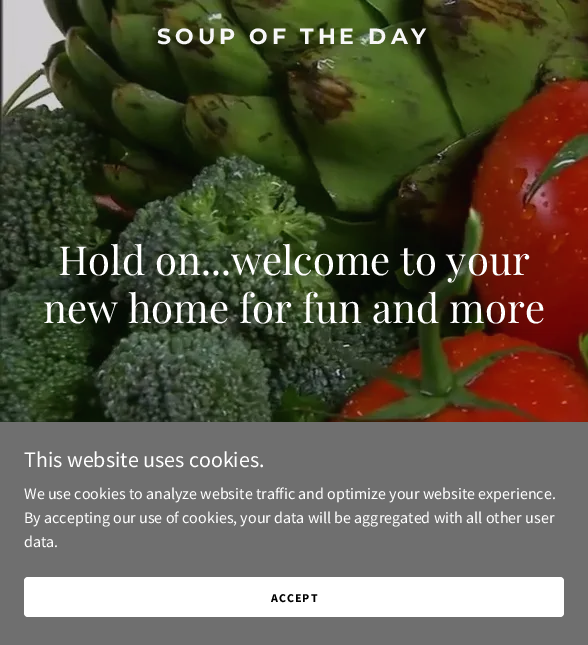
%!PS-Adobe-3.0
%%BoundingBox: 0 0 588 645
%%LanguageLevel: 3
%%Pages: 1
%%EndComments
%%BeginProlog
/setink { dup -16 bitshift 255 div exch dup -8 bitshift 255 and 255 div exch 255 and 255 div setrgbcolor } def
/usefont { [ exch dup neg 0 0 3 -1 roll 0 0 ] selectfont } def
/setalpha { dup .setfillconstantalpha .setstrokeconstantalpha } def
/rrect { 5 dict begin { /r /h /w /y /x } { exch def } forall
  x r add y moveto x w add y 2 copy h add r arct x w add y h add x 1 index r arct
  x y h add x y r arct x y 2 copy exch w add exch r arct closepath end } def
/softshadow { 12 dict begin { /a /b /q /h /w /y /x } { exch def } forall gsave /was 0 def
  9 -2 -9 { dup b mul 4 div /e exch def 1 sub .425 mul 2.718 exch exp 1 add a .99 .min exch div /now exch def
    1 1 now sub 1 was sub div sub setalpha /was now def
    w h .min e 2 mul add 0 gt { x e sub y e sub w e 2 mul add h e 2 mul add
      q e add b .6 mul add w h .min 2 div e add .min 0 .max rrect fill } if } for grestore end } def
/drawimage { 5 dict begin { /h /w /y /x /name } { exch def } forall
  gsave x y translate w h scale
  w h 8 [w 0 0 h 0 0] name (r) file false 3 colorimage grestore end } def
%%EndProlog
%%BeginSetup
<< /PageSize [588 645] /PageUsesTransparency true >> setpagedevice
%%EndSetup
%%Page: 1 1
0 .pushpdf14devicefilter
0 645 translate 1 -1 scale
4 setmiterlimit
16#FFFFFF setink
0 0 588 645 rectfill
(img1.raw) 0 0 588 422 drawimage
/Montserrat-Bold 22 usefont
16#F7F7F7 setink
157 44 moveto 4 0 (SOUP OF THE DAY) ashow
/PlayfairDisplay-Regular 40 usefont
16#FFFFFF setink
58 275 moveto (Hold on...welcome to your) show
43 323 moveto (new home for fun and more) show
16#000000 setink
0 424 588 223 0 3 0.3 softshadow
16#6F6F6F setink
0 422 588 223 rectfill
/SourceSansPro-Regular 22 usefont
16#FFFFFF setink
24 467 moveto (This website uses cookies.) show
/SourceSansPro-Regular 16 usefont
[
    [(We use cookies to analyze website traffic and optimize your website experience.) 24 499]
    [(By accepting our use of cookies, your data will be aggregated with all other user) 24 523]
    [(data.) 24 547]
] { aload pop moveto show } forall
24 577 540 40 4 rrect fill
/SourceSansPro-Bold 12 usefont
16#000000 setink
271 602 moveto 1 0 (ACCEPT) ashow
.poppdf14devicefilter showpage
%%EOF
